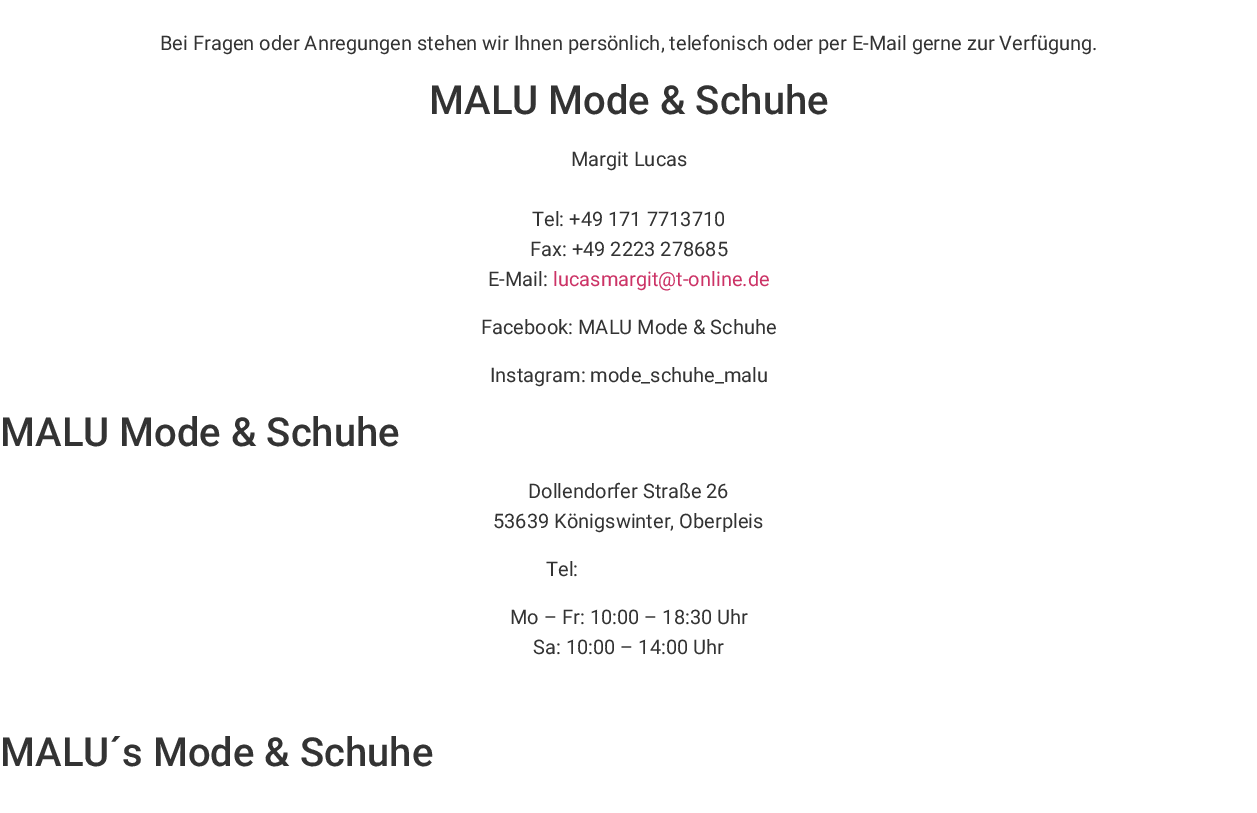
%!PS-Adobe-3.0
%%BoundingBox: 0 0 1257 813
%%LanguageLevel: 3
%%Pages: 1
%%EndComments
%%BeginProlog
/setink { dup -16 bitshift 255 div exch dup -8 bitshift 255 and 255 div exch 255 and 255 div setrgbcolor } def
/usefont { [ exch dup neg 0 0 3 -1 roll 0 0 ] selectfont } def
%%EndProlog
%%BeginSetup
<< /PageSize [1257 813] >> setpagedevice
%%EndSetup
%%Page: 1 1
0 813 translate 1 -1 scale
4 setmiterlimit
16#FFFFFF setink
0 0 1257 813 rectfill
/Roboto-Regular 20 usefont
16#333333 setink
160 50 moveto (Bei Fragen oder Anregungen stehen wir Ihnen persönlich, telefonisch oder per E-Mail gerne zur Verfügung.) show
/Roboto-Medium 40 usefont
429 114 moveto (MALU Mode & Schuhe) show
/Roboto-Regular 20 usefont
[
    [(Margit Lucas) 571 166]
    [(Tel: +49 171 7713710) 532 226]
    [(Fax: +49 2223 278685) 530 256]
    [(E-Mail:) 488 286]
] { aload pop moveto show } forall
16#CC3366 setink
553 286 moveto (lucasmargit@t-online.de) show
16#333333 setink
481 334 moveto (Facebook: MALU Mode & Schuhe) show
490 382 moveto (Instagram: mode_schuhe_malu) show
/Roboto-Medium 40 usefont
0 446 moveto (MALU Mode & Schuhe) show
/Roboto-Regular 20 usefont
[
    [(Dollendorfer Straße 26) 528 498]
    [(53639 Königswinter, Oberpleis) 493 528]
    [(Tel:) 546 576]
    [(Mo – Fr: 10:00 – 18:30 Uhr) 510 624]
    [(Sa: 10:00 – 14:00 Uhr) 533 654]
] { aload pop moveto show } forall
/Roboto-Medium 40 usefont
0 766 moveto (MALU´s Mode & Schuhe) show
showpage
%%EOF
